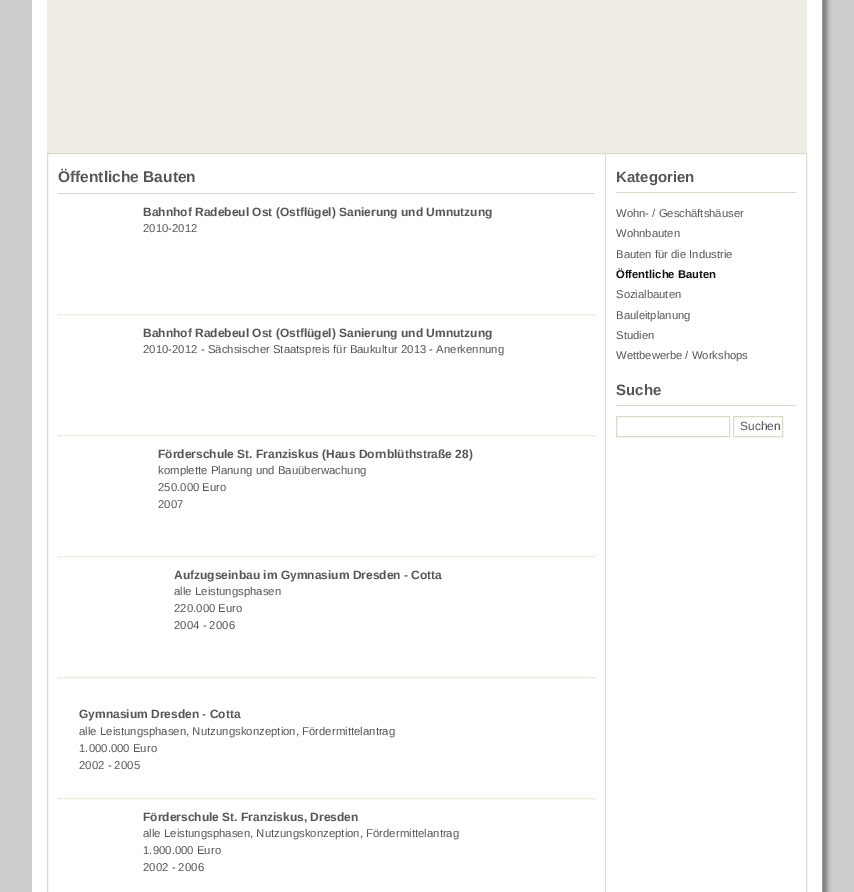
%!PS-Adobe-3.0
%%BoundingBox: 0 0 854 892
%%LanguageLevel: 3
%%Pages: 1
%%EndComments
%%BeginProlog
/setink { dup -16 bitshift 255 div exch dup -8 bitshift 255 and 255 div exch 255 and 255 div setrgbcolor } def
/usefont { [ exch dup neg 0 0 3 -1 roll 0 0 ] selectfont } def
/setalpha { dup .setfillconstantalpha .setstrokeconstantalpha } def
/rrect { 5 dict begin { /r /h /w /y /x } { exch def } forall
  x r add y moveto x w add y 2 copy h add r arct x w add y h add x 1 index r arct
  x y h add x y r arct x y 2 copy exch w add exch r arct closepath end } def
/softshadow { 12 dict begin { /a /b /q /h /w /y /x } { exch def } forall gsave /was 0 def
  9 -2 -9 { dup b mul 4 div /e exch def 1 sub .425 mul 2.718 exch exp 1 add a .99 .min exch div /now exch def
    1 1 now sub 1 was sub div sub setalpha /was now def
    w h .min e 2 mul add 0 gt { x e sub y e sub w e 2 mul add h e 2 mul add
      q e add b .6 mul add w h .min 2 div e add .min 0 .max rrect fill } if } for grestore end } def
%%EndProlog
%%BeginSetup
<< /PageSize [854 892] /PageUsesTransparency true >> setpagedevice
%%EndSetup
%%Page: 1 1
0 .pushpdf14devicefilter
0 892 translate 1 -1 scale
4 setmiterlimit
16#CCCCCC setink
0 0 854 892 rectfill
16#777777 setink
37 -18 790 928 10 2.5 1 softshadow
16#FFFFFF setink
47 -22 moveto 807 -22 lineto 807 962 lineto 47 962 lineto 47 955 lineto closepath fill
3 setlinewidth
33.5 -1.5 787 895 rectstroke
[
    [807 0 12 892 16#FFFFFF]
    [35 0 12 892 16#FFFFFF]
    [47 0 760 153 16#F0EDE4]
] { aload pop setink rectfill } forall
16#DBDACA setink
1 setlinewidth
47.5 153.5 759 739 rectstroke
605 154 1 738 rectfill
58 193 537 1 rectfill
/LiberationSans-Bold 15.5 usefont
16#565656 setink
58 182 moveto (Öffentliche Bauten) show
16#DBDACA setink
[1 1] 0 setdash
58 314.5 moveto 595 314.5 lineto stroke
/LiberationSans-Bold 12 usefont
16#565656 setink
143 216 moveto (Bahnhof Radebeul Ost \(Ostflügel\) Sanierung und Umnutzung) show
/LiberationSans-Regular 11.4 usefont
143 232 moveto (2010-2012) show
16#DBDACA setink
58 435.5 moveto 595 435.5 lineto stroke
/LiberationSans-Bold 12 usefont
16#565656 setink
143 337 moveto (Bahnhof Radebeul Ost \(Ostflügel\) Sanierung und Umnutzung) show
/LiberationSans-Regular 11.4 usefont
143 353 moveto (2010-2012 - Sächsischer Staatspreis für Baukultur 2013 - Anerkennung) show
16#DBDACA setink
58 556.5 moveto 595 556.5 lineto stroke
/LiberationSans-Bold 12 usefont
16#565656 setink
158 458 moveto (Förderschule St. Franziskus \(Haus Dornblüthstraße 28\)) show
/LiberationSans-Regular 11.4 usefont
[
    [(komplette Planung und Bauüberwachung) 158 474]
    [(250.000 Euro) 158 491]
    [(2007) 158 508]
] { aload pop moveto show } forall
16#DBDACA setink
58 677.5 moveto 595 677.5 lineto stroke
/LiberationSans-Bold 12 usefont
16#565656 setink
174 579 moveto (Aufzugseinbau im Gymnasium Dresden - Cotta) show
/LiberationSans-Regular 11.4 usefont
[
    [(alle Leistungsphasen) 174 595]
    [(220.000 Euro) 174 612]
    [(2004 - 2006) 174 629]
] { aload pop moveto show } forall
16#DBDACA setink
58 798.5 moveto 595 798.5 lineto stroke
/LiberationSans-Bold 12 usefont
16#565656 setink
79 718 moveto (Gymnasium Dresden - Cotta) show
/LiberationSans-Regular 11.4 usefont
[
    [(alle Leistungsphasen, Nutzungskonzeption, Fördermittelantrag) 79 735]
    [(1.000.000 Euro) 79 752]
    [(2002 - 2005) 79 769]
] { aload pop moveto show } forall
/LiberationSans-Bold 12 usefont
143 821 moveto (Förderschule St. Franziskus, Dresden) show
/LiberationSans-Regular 11.4 usefont
[
    [(alle Leistungsphasen, Nutzungskonzeption, Fördermittelantrag) 143 837]
    [(1.900.000 Euro) 143 854]
    [(2002 - 2006) 143 871]
] { aload pop moveto show } forall
16#DBDACA setink
616 192 180 1 rectfill
/LiberationSans-Bold 15 usefont
16#565656 setink
616 182 moveto (Kategorien) show
/LiberationSans-Regular 11.25 usefont
[
    [(Wohn- / Geschäftshäuser) 616 217]
    [(Wohnbauten) 616 237]
    [(Bauten für die Industrie) 616 258]
] { aload pop moveto show } forall
/LiberationSans-Bold 11.25 usefont
16#111111 setink
616 278 moveto (Öffentliche Bauten) show
/LiberationSans-Regular 11.25 usefont
16#565656 setink
[
    [(Sozialbauten) 616 298]
    [(Bauleitplanung) 616 319]
    [(Studien) 616 339]
    [(Wettbewerbe / Workshops) 616 359]
] { aload pop moveto show } forall
16#DBDACA setink
616 405 180 1 rectfill
/LiberationSans-Bold 15 usefont
16#565656 setink
616 395 moveto (Suche) show
16#DBDACA setink
[] 0 setdash
616.5 416.5 113 20 rectstroke
733.5 416.5 49 20 rectstroke
/LiberationSans-Regular 12 usefont
16#565656 setink
740 430 moveto (Suchen) show
.poppdf14devicefilter showpage
%%EOF
